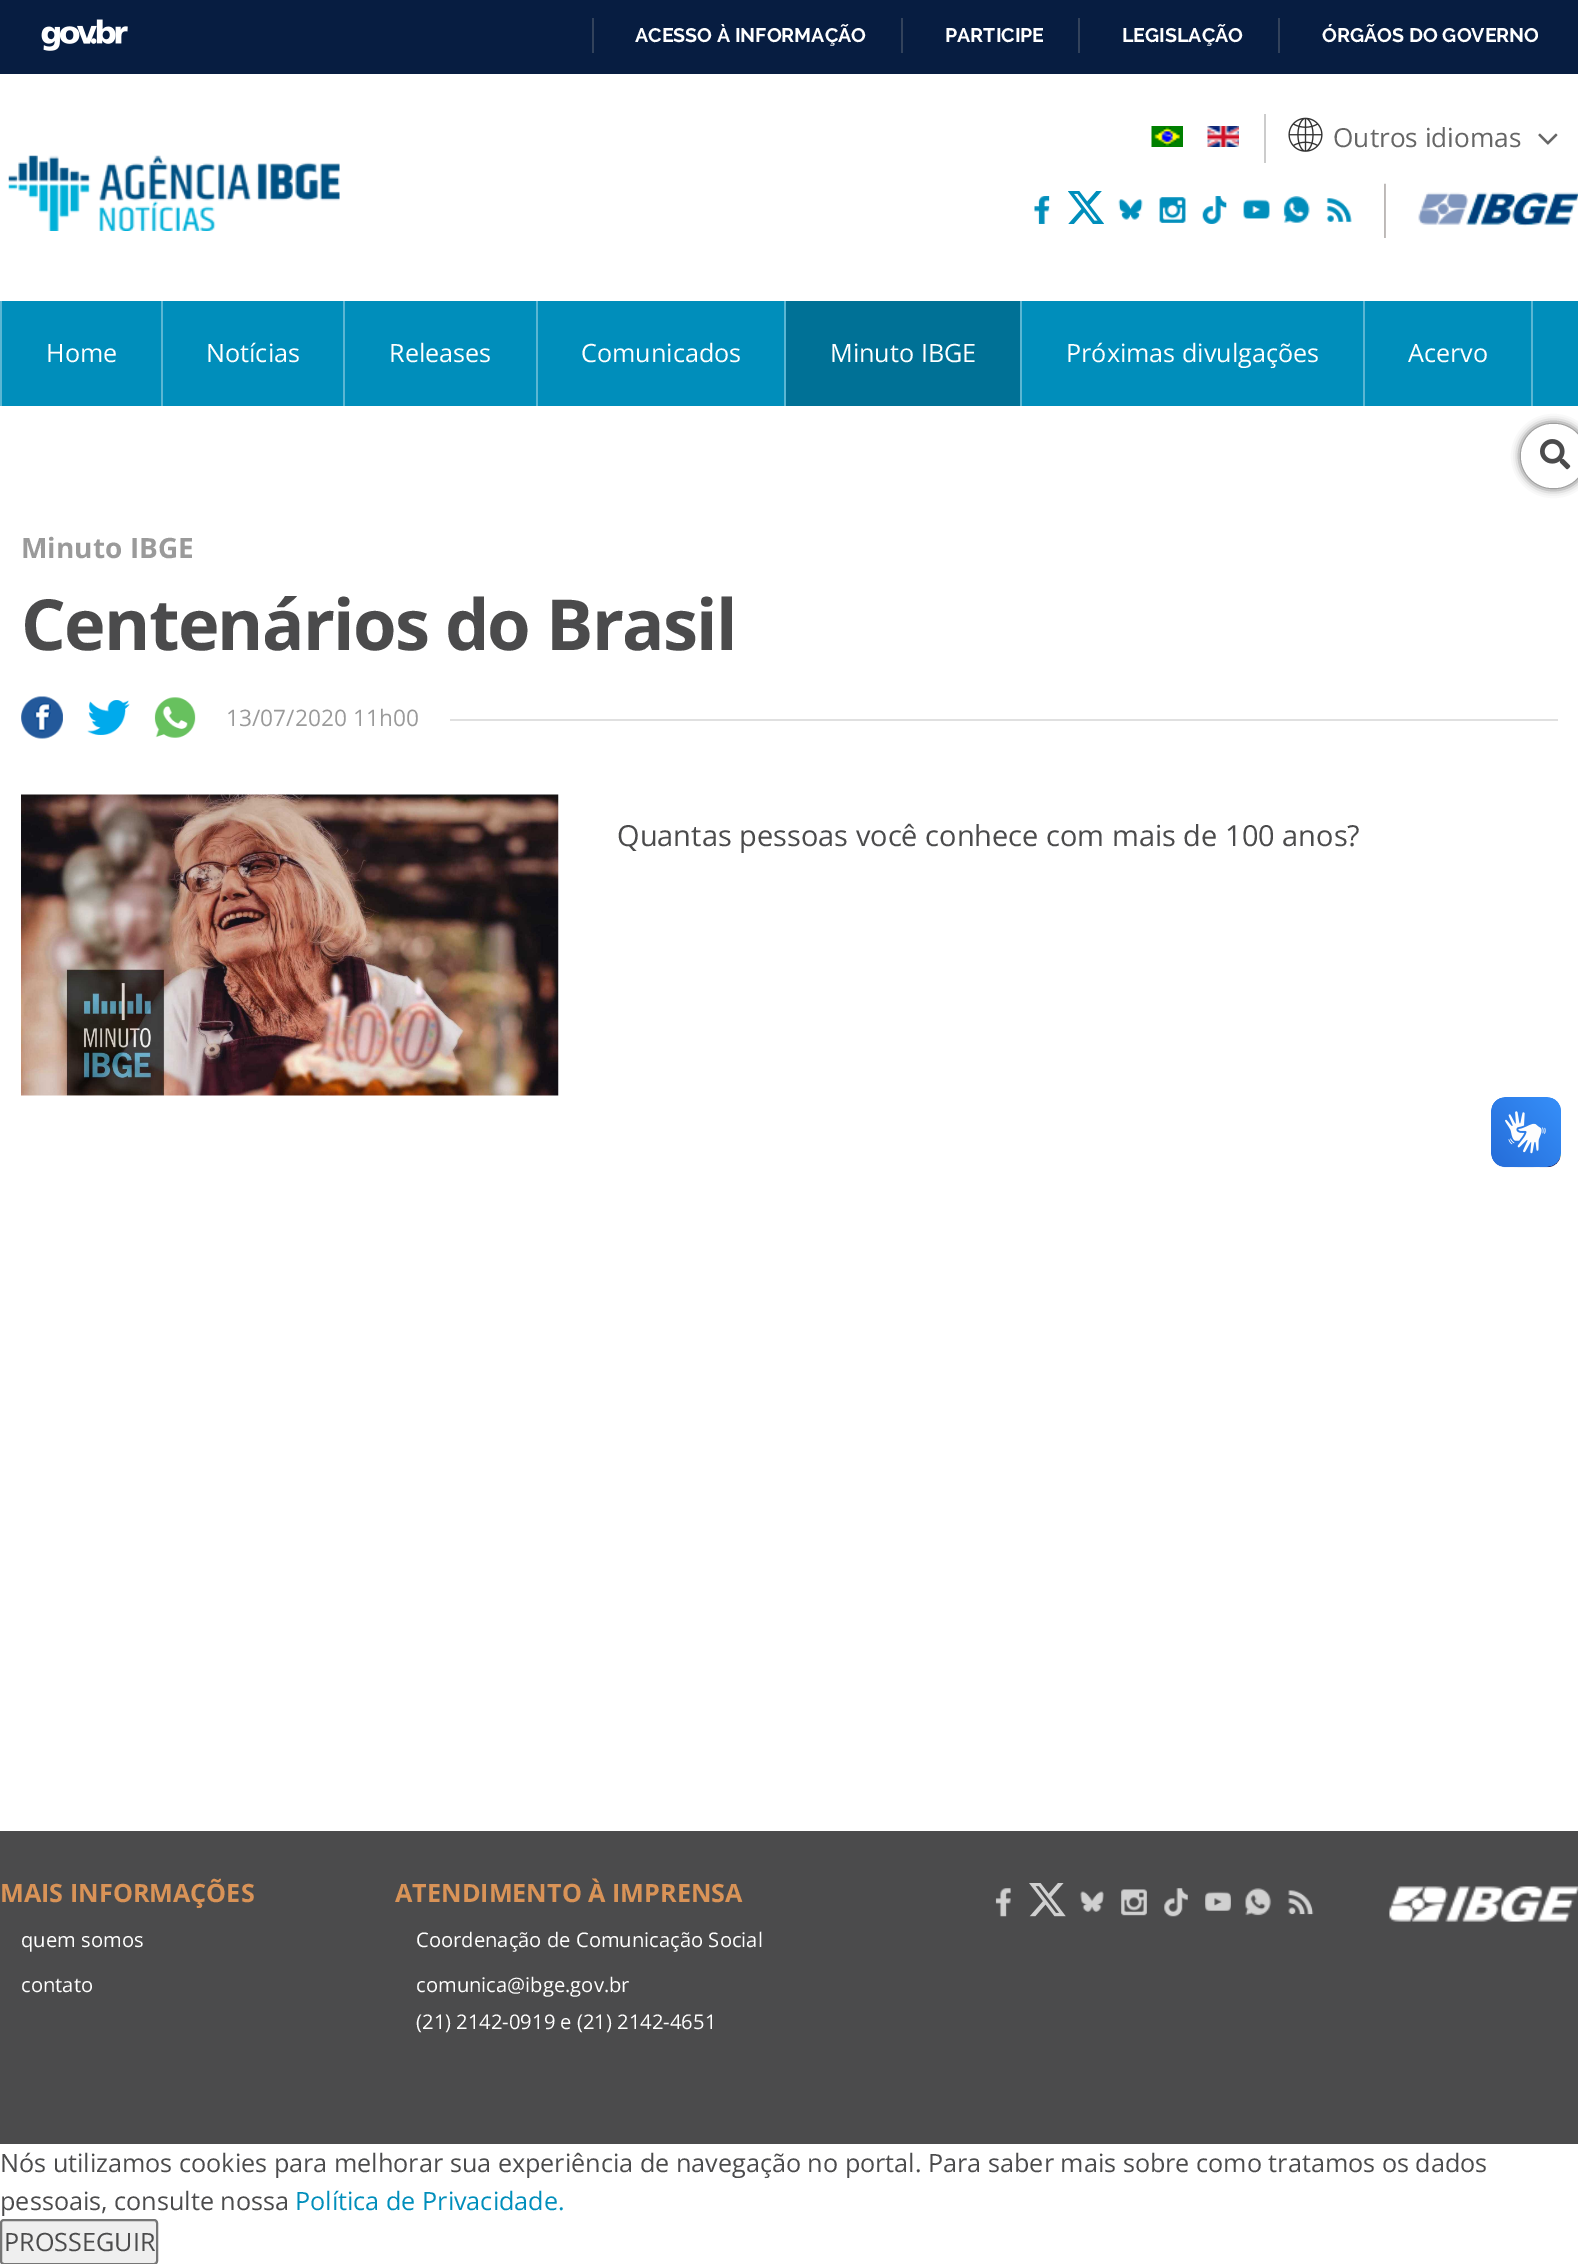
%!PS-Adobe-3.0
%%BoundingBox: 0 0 1578 2264
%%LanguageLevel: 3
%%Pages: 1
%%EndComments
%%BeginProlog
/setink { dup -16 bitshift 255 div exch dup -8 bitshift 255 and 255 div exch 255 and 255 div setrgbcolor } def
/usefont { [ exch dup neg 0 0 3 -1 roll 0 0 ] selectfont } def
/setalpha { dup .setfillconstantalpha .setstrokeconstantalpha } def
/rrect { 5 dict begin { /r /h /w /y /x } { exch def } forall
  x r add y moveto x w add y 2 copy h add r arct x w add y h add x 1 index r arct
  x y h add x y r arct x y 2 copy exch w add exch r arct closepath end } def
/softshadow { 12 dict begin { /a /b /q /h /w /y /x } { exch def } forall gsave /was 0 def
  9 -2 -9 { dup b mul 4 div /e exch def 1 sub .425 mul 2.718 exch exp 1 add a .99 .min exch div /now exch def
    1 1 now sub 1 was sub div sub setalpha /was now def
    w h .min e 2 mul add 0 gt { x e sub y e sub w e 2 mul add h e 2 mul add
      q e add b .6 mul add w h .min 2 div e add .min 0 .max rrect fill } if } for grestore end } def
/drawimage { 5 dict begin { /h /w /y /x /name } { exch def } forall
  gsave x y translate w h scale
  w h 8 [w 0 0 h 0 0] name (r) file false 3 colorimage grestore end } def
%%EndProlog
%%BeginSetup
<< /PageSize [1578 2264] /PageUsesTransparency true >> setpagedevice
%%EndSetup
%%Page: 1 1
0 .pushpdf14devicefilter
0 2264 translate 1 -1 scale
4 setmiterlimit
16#FFFFFF setink
0 0 1578 2264 rectfill
16#071D41 setink
0 0 1578 74 rectfill
(img1.raw) 41 19 87 32 drawimage
16#32425B setink
592 18 2 35 rectfill
/Raleway-Bold 19.6 usefont
16#FFFFFF setink
635 42 moveto (ACESSO À INFORMAÇÃO) show
16#32425B setink
901 18 2 35 rectfill
16#FFFFFF setink
945 42 moveto (PARTICIPE) show
16#32425B setink
1078 18 2 35 rectfill
16#FFFFFF setink
1122 42 moveto (LEGISLAÇÃO) show
16#32425B setink
1278 18 2 35 rectfill
gsave
557 14 981 42 rectclip
16#FFFFFF setink
1322 42 moveto (ÓRGÃOS DO GOVERNO) show
grestore
(img2.raw) 1151 126 32 21 drawimage
(img3.raw) 1207 126 32 21 drawimage
16#CCCCCC setink
1264 114 2 49 rectfill
(img4.raw) 1288 117 35 35 drawimage
/OpenSans-Regular 26.25 usefont
16#666666 setink
1333 147 moveto (Outros idiomas) show
(img5.raw) 1538 133 20 12 drawimage
(img6.raw) 1034 196 16 28 drawimage
(img7.raw) 1068 191 36 33 drawimage
(img8.raw) 1118 199 25 21 drawimage
(img9.raw) 1159 197 27 26 drawimage
(img10.raw) 1202 196 25 28 drawimage
(img11.raw) 1243 199 27 20 drawimage
(img12.raw) 1283 196 27 27 drawimage
(img13.raw) 1326 198 26 25 drawimage
(img14.raw) 1384 183 194 55 drawimage
(img15.raw) 8 155 332 76 drawimage
16#008EBB setink
2 301 1576 105 rectfill
16#5AB6D3 setink
0 301 2 105 rectfill
/OpenSans-Regular 25.2 usefont
16#FFFFFF setink
46 362 moveto (Home) show
16#5AB6D3 setink
161 301 2 105 rectfill
16#FFFFFF setink
206 362 moveto (Notícias) show
16#5AB6D3 setink
343 301 2 105 rectfill
16#FFFFFF setink
389 362 moveto (Releases) show
16#5AB6D3 setink
536 301 2 105 rectfill
16#FFFFFF setink
581 362 moveto (Comunicados) show
16#007196 setink
786 301 234 105 rectfill
16#5AB6D3 setink
784 301 2 105 rectfill
16#FFFFFF setink
830 362 moveto (Minuto IBGE) show
16#5AB6D3 setink
1020 301 2 105 rectfill
16#FFFFFF setink
1066 362 moveto (Próximas divulgações) show
16#5AB6D3 setink
1531 301 2 105 rectfill
1363 301 2 105 rectfill
16#FFFFFF setink
1408 362 moveto (Acervo) show
16#000000 setink
1521 424 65 64 32 4.5 0.75 softshadow
16#FFFFFF setink
1521 424 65 64 32 rrect fill
(img16.raw) 1540 439 31 31 drawimage
/OpenSans-Bold 28 usefont
16#9A9A9A setink
21 558 moveto (Minuto IBGE) show
/OpenSans-Bold 70.5 usefont
16#4B4B4C setink
21 650 moveto -1.75 0 (Centenários do Brasil) ashow
16#E0E0E0 setink
450 719 1108 2 rectfill
(img17.raw) 21 696 42 43 drawimage
(img18.raw) 87 700 43 35 drawimage
(img19.raw) 154 697 42 41 drawimage
/OpenSans-Regular 22.75 usefont
16#9A9A9A setink
226 726 moveto (13/07/2020 11h00) show
(img20.raw) 21 794 538 302 drawimage
/OpenSans-Regular 29 usefont
16#4B4B4C setink
617 846 moveto (Quantas pessoas você conhece com mais de 100 anos?) show
(img21.raw) 1491 1097 70 71 drawimage
(img22.raw) 1491 1097 70 70 drawimage
0 1831 1578 313 rectfill
/OpenSans-Bold 25.2 usefont
16#D99357 setink
0 1902 moveto (MAIS INFORMAÇÕES) show
/OpenSans-Regular 20.2 usefont
16#FFFFFF setink
21 1947 moveto (quem somos) show
21 1992 moveto (contato) show
/OpenSans-Bold 25.2 usefont
16#D99357 setink
395 1902 moveto (ATENDIMENTO À IMPRENSA) show
/OpenSans-Regular 20.2 usefont
16#FFFFFF setink
[
    [(Coordenação de Comunicação Social) 416 1947]
    [(comunica@ibge.gov.br) 416 1992]
    [(\(21\) 2142-0919 e \(21\) 2142-4651) 416 2029]
] { aload pop moveto show } forall
(img23.raw) 995 1888 16 29 drawimage
(img24.raw) 1029 1883 37 34 drawimage
(img25.raw) 1080 1891 24 21 drawimage
(img26.raw) 1121 1889 26 27 drawimage
(img27.raw) 1164 1888 24 29 drawimage
(img28.raw) 1205 1891 26 20 drawimage
(img29.raw) 1245 1888 27 28 drawimage
(img30.raw) 1288 1890 26 25 drawimage
(img31.raw) 1389 1886 189 36 drawimage
/OpenSans-Regular 25.2 usefont
16#4B4B4C setink
0 2172 moveto (Nós utilizamos cookies para melhorar sua experiência de navegação no portal. Para saber mais sobre como tratamos os dados) show
0 2210 moveto (pessoais, consulte nossa) show
16#008EBB setink
295 2210 moveto (Política de Privacidade.) show
16#EFEFEF setink
1 2220 156 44 3 rrect gsave fill grestore
16#767676 setink
2 setlinewidth
stroke
16#4B4B4C setink
4 2251 moveto (PROSSEGUIR) show
.poppdf14devicefilter showpage
%%EOF
